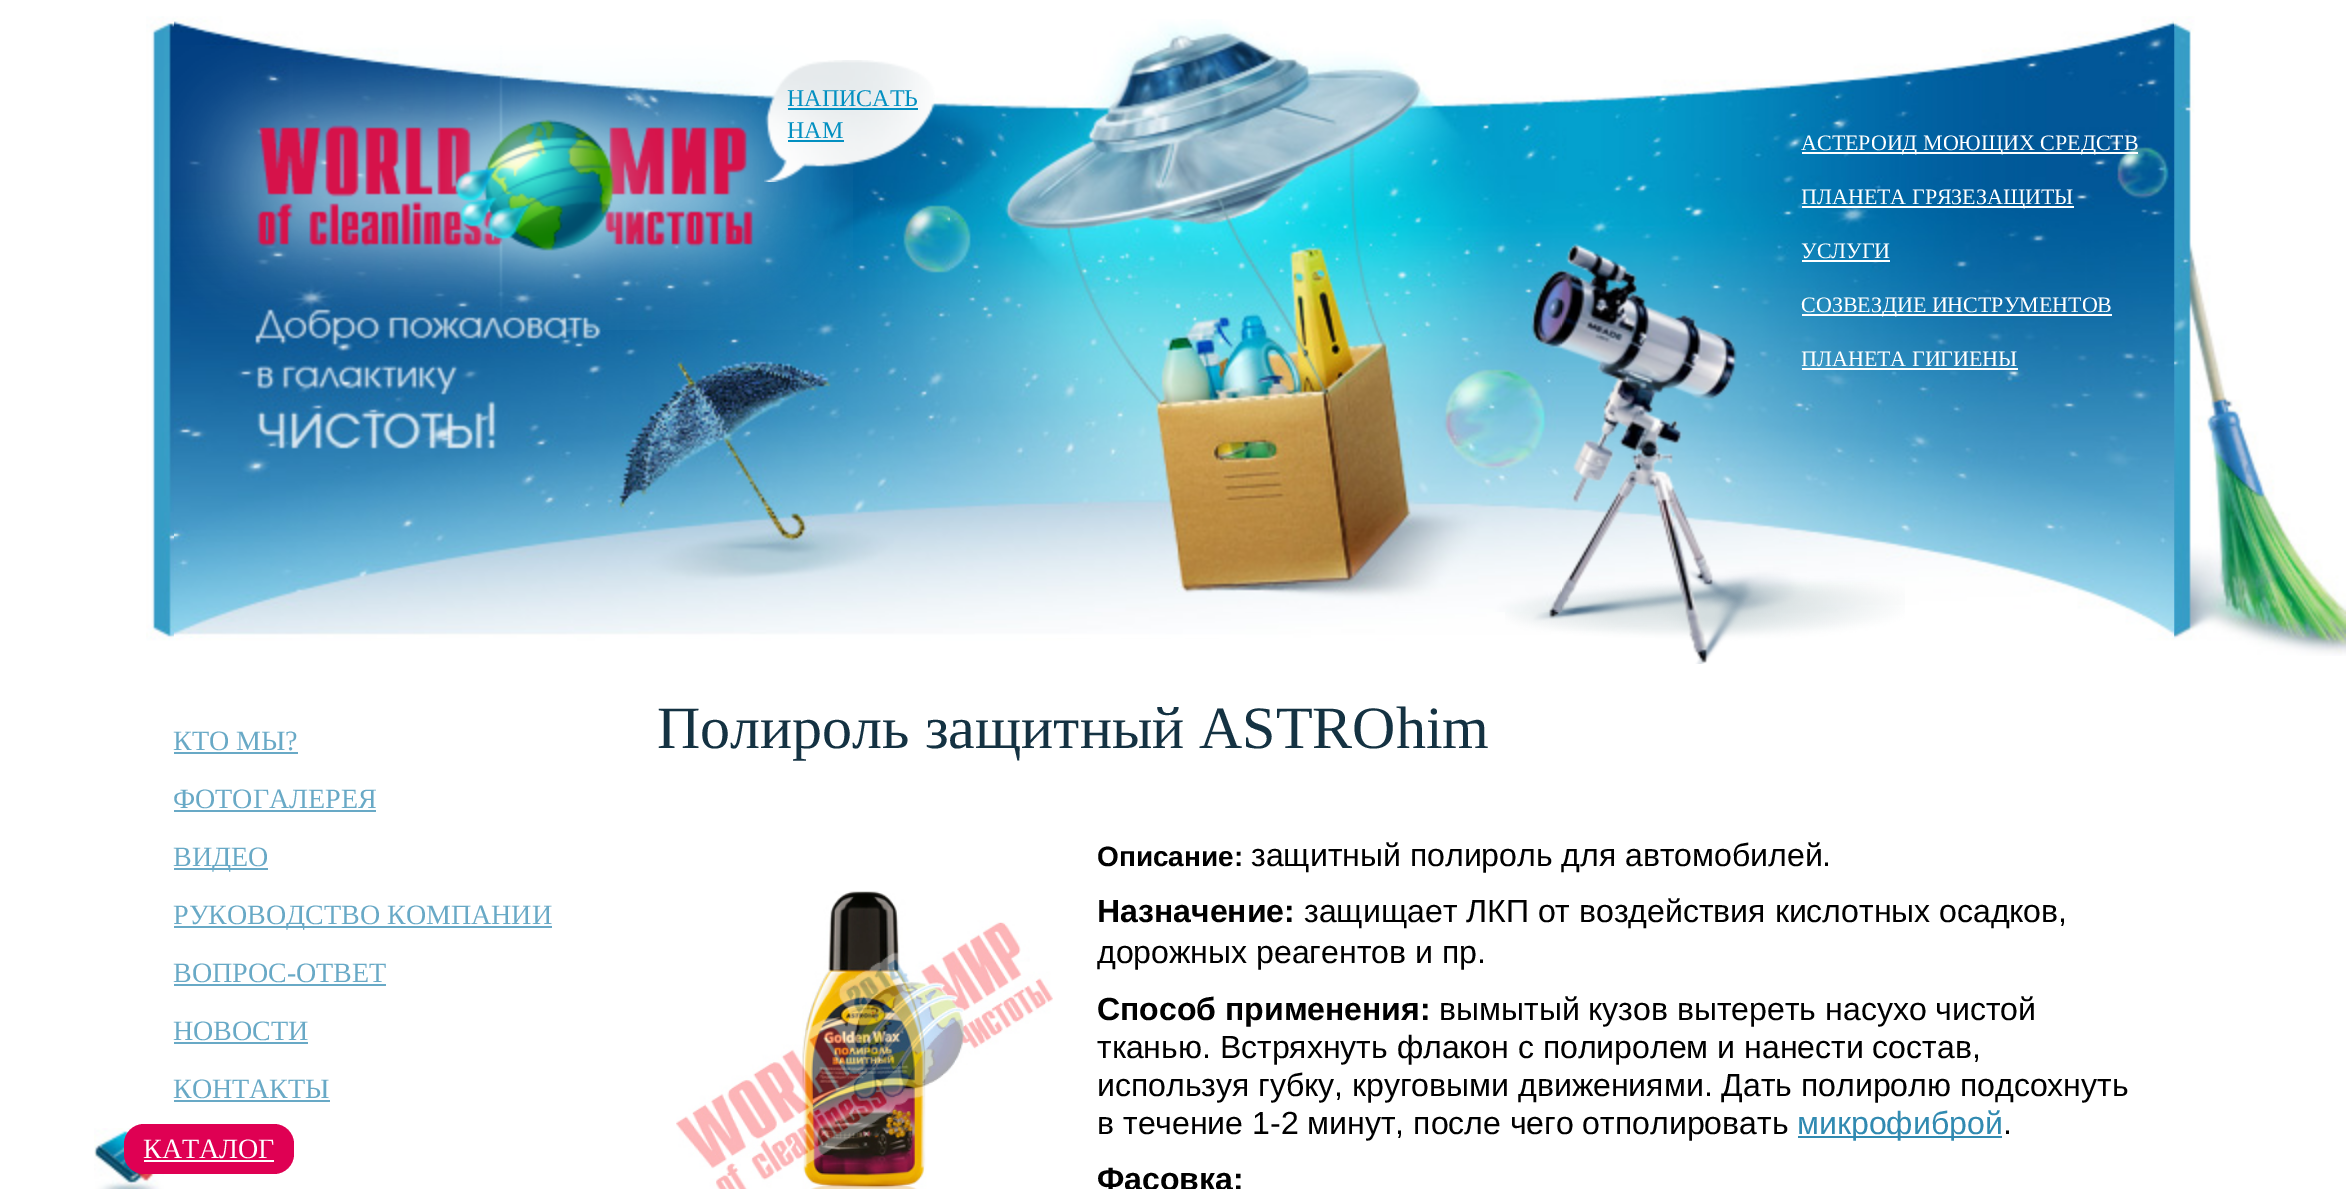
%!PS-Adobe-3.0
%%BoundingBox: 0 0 2346 1189
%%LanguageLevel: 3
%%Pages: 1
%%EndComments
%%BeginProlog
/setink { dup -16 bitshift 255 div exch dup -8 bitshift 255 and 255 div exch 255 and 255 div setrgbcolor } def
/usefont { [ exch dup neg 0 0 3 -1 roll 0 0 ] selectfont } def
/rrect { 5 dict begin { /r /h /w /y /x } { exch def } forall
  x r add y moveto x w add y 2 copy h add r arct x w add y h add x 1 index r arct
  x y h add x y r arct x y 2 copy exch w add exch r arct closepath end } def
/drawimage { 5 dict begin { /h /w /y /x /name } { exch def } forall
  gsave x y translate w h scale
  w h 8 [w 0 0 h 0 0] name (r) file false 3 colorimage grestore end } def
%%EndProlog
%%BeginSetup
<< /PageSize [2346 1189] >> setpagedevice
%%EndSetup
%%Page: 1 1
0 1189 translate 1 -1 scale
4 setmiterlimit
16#FFFFFF setink
0 0 2346 1189 rectfill
(img1.raw) 146 16 2200 640 drawimage
(img2.raw) 174 16 2000 622 drawimage
(img3.raw) 159 45 694 285 drawimage
(img6.raw) 1505 243 400 421 drawimage
(img4.raw) 950 19 612 593 drawimage
(img5.raw) 764 60 171 122 drawimage
/LiberationSerif-Regular 24 usefont
16#0390C1 setink
787 106 moveto (НАПИСАТЬ) show
788 108 130 2 rectfill
787 138 moveto (НАМ) show
788 140 56 2 rectfill
16#FFFFFF setink
1802 152 336 2 rectfill
/LiberationSerif-Regular 22 usefont
1801 150 moveto (АСТЕРОИД МОЮЩИХ СРЕДСТВ) show
1802 206 272 2 rectfill
1801 204 moveto (ПЛАНЕТА ГРЯЗЕЗАЩИТЫ) show
1801 258 moveto (УСЛУГИ) show
1802 260 88 2 rectfill
1802 314 310 2 rectfill
1801 312 moveto (СОЗВЕЗДИЕ ИНСТРУМЕНТОВ) show
1801 366 moveto (ПЛАНЕТА ГИГИЕНЫ) show
1802 368 216 2 rectfill
/LiberationSerif-Regular 28 usefont
16#68A9C6 setink
173 750 moveto (КТО МЫ?) show
174 752 124 2 rectfill
173 808 moveto (ФОТОГАЛЕРЕЯ) show
174 810 202 2 rectfill
174 868 94 2 rectfill
173 866 moveto (ВИДЕО) show
174 926 378 2 rectfill
173 924 moveto (РУКОВОДСТВО КОМПАНИИ) show
173 982 moveto (ВОПРОС-ОТВЕТ) show
174 984 212 2 rectfill
173 1040 moveto (НОВОСТИ) show
174 1042 134 2 rectfill
173 1098 moveto (КОНТАКТЫ) show
174 1100 156 2 rectfill
(img7.raw) 94 1128 70 61 drawimage
16#DF0053 setink
124 1124 170 50 20 rrect fill
16#FFFFFF setink
143 1158 moveto (КАТАЛОГ) show
144 1160 130 2 rectfill
/LiberationSerif-Regular 60 usefont
16#143242 setink
657 748 moveto (Полироль защитный ASTROhim) show
(img8.raw) 676 891 377 298 drawimage
/LiberationSans-Bold 28 usefont
16#000000 setink
1097 866 moveto (Описание:) show
/LiberationSans-Regular 32 usefont
1251 866 moveto (защитный полироль для автомобилей.) show
/LiberationSans-Bold 32 usefont
1097 922 moveto (Назначение:) show
/LiberationSans-Regular 32 usefont
1304 922 moveto (защищает ЛКП от воздействия кислотных осадков,) show
1097 963 moveto (дорожных реагентов и пр.) show
/LiberationSans-Bold 32 usefont
1097 1020 moveto (Способ применения:) show
/LiberationSans-Regular 32 usefont
[
    [(вымытый кузов вытереть насухо чистой) 1439 1020]
    [(тканью. Встряхнуть флакон с полиролем и нанести состав,) 1097 1058]
    [(используя губку, круговыми движениями. Дать полиролю подсохнуть) 1097 1096]
    [(в течение 1-2 минут, после чего отполировать) 1097 1134]
] { aload pop moveto show } forall
16#318AB1 setink
1798 1136 204 2 rectfill
1797 1134 moveto (микрофиброй) show
16#000000 setink
2003 1134 moveto (.) show
/LiberationSans-Bold 32 usefont
1097 1190 moveto (Фасовка:) show
showpage
%%EOF
